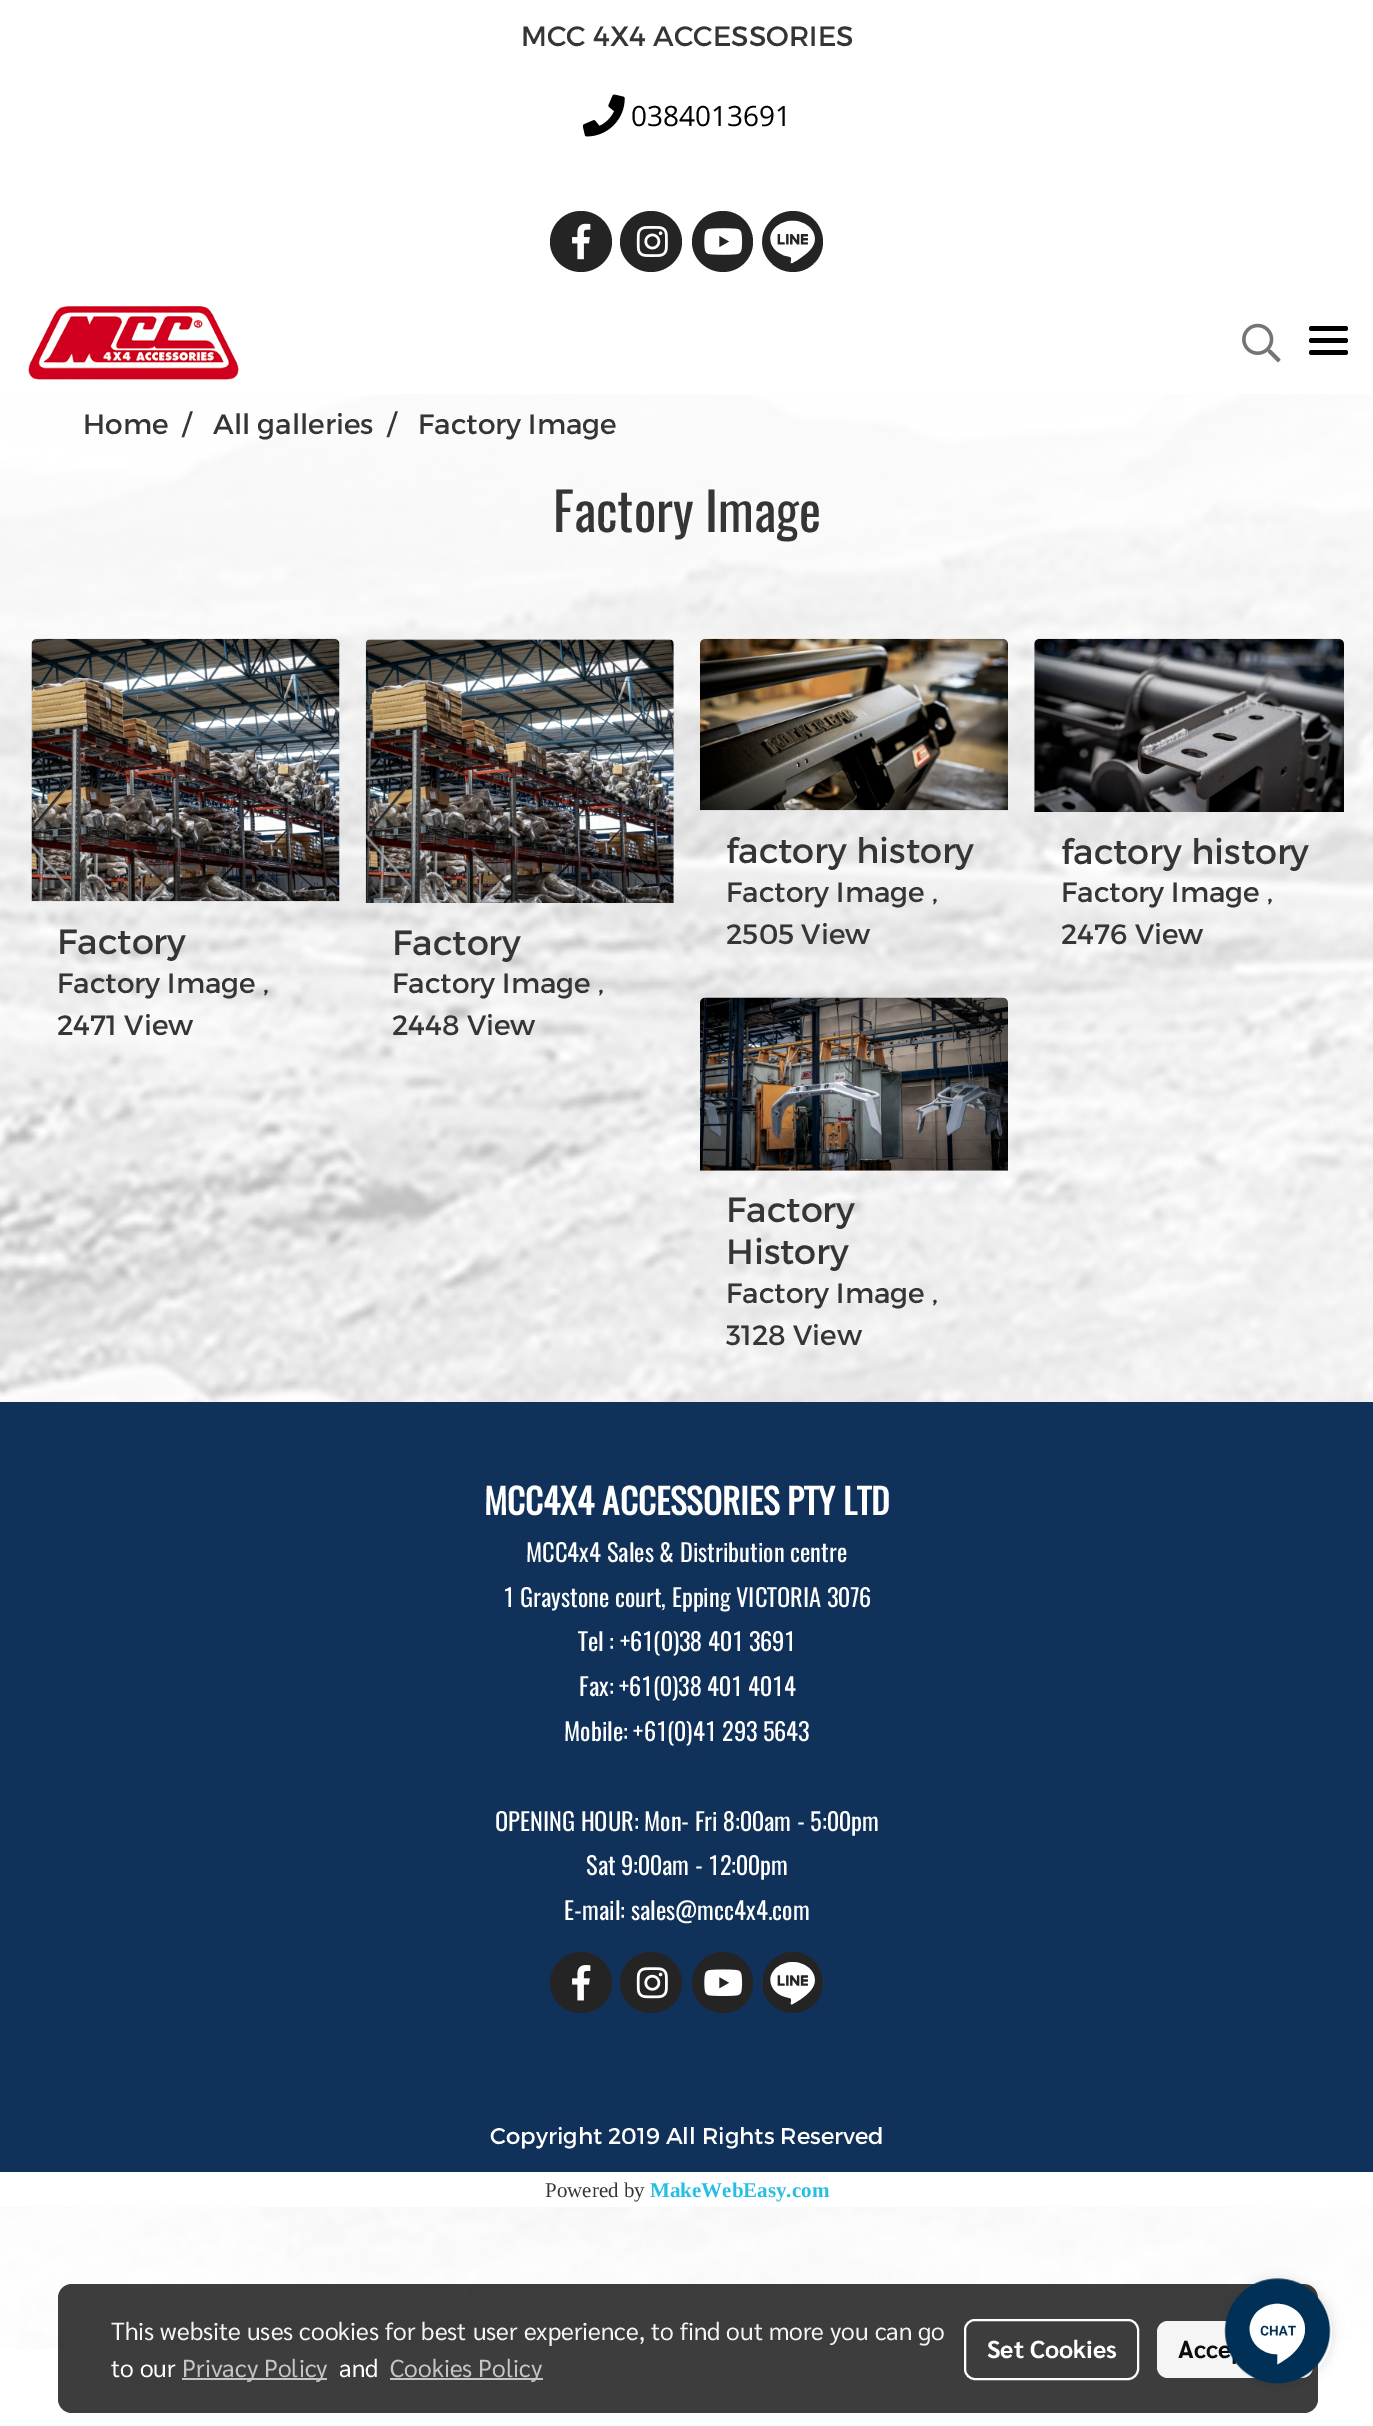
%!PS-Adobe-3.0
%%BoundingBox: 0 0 1373 2426
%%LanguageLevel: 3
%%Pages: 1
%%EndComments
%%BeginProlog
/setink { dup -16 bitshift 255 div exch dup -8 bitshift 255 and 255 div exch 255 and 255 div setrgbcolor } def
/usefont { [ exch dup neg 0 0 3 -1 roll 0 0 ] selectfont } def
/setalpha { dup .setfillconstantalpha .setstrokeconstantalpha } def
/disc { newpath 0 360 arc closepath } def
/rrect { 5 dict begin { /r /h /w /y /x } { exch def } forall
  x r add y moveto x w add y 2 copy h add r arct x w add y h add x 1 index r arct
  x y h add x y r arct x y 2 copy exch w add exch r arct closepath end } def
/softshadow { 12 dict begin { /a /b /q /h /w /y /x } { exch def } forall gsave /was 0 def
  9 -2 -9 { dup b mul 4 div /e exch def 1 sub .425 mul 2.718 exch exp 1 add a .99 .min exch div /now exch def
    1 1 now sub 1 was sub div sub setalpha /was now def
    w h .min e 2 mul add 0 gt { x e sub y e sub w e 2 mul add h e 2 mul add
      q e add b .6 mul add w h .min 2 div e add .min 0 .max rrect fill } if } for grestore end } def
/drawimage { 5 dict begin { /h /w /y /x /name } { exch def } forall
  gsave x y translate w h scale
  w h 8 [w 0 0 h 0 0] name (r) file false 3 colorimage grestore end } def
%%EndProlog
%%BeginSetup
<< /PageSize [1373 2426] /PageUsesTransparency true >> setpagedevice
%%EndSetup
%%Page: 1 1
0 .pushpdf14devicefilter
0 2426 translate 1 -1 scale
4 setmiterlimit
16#FFFFFF setink
0 0 1373 2426 rectfill
(img1.raw) 0 394 1373 1955 drawimage
/Montserrat-Regular 28 usefont
16#353535 setink
521 46 moveto (MCC 4X4 ACCESSORIES) show
(img2.raw) 583 94 42 43 drawimage
/OpenSans-Regular 28 usefont
16#000000 setink
631 126 moveto (0384013691) show
16#242424 setink
581 211 moveto 564 211 550 225 550 242 curveto 550 258 564 272 581 272 curveto 598 272 612 258 612 242 curveto 612 225 598 211 581 211 curveto closepath fill
(img3.raw) 572 223 19 37 drawimage
651 211 moveto 634 211 620 225 620 242 curveto 620 258 634 272 651 272 curveto 668 272 682 258 682 242 curveto 682 225 668 211 651 211 curveto closepath fill
(img4.raw) 636 226 32 31 drawimage
723 211 moveto 706 211 692 225 692 242 curveto 692 258 706 272 723 272 curveto 740 272 753 258 753 242 curveto 753 225 740 211 723 211 curveto closepath fill
(img5.raw) 704 228 39 27 drawimage
793 211 moveto 776 211 762 225 762 242 curveto 762 258 776 272 793 272 curveto 810 272 823 258 823 242 curveto 823 225 810 211 793 211 curveto closepath fill
(img6.raw) 762 220 53 44 drawimage
(img7.raw) 28 306 211 74 drawimage
(img8.raw) 1242 323 39 40 drawimage
16#000000 setink
1309 338 39 5 2.5 rrect fill
1309 326 39 5 2.5 rrect fill
1309 350 39 5 2.5 rrect fill
/Montserrat-Regular 28 usefont
16#353535 setink
[
    [(Home) 83 434]
    [(/) 182 434]
    [(All galleries) 213 434]
    [(/) 387 434]
    [(Factory Image) 418 434]
] { aload pop moveto show } forall
/Oswald-Regular 52.5 usefont
553 532 moveto (Factory Image) show
(img9.raw) 700 638 308 173 drawimage
/Montserrat-Regular 35 usefont
726 863 moveto (factory history) show
/Montserrat-Regular 28 usefont
726 902 moveto (Factory Image ,) show
726 944 moveto (2505 View) show
(img10.raw) 1034 638 310 174 drawimage
/Montserrat-Regular 35 usefont
1061 864 moveto (factory history) show
/Montserrat-Regular 28 usefont
1061 902 moveto (Factory Image ,) show
1061 944 moveto (2476 View) show
(img11.raw) 31 638 309 264 drawimage
/Montserrat-Regular 35 usefont
57 954 moveto (Factory) show
/Montserrat-Regular 28 usefont
57 993 moveto (Factory Image ,) show
57 1035 moveto (2471 View) show
(img12.raw) 365 639 309 264 drawimage
/Montserrat-Regular 35 usefont
392 955 moveto (Factory) show
/Montserrat-Regular 28 usefont
392 993 moveto (Factory Image ,) show
392 1035 moveto (2448 View) show
(img13.raw) 700 997 308 174 drawimage
/Montserrat-Regular 35 usefont
726 1222 moveto (Factory) show
726 1264 moveto (History) show
/Montserrat-Regular 28 usefont
726 1303 moveto (Factory Image ,) show
726 1345 moveto (3128 View) show
16#10315A setink
0 1402 1373 770 rectfill
/Oswald-Bold 35 usefont
16#FFFFFF setink
484 1515 moveto (MCC4X4 ACCESSORIES PTY LTD) show
/Oswald-Regular 24.5 usefont
[
    [(MCC4x4 Sales & Distribution centre) 526 1562]
    [(1 Graystone court, Epping VICTORIA 3076) 503 1607]
    [(Tel : +61\(0\)38 401 3691) 578 1651]
    [(Fax: +61\(0\)38 401 4014) 579 1696]
    [(Mobile: +61\(0\)41 293 5643) 564 1741]
    [(OPENING HOUR: Mon- Fri 8:00am - 5:00pm) 495 1831]
    [(Sat 9:00am - 12:00pm) 586 1875]
    [(E-mail: sales@mcc4x4.com) 564 1920]
] { aload pop moveto show } forall
16#242424 setink
581 1952 moveto 564 1952 550 1966 550 1983 curveto 550 2000 564 2013 581 2013 curveto 598 2013 612 2000 612 1983 curveto 612 1966 598 1952 581 1952 curveto closepath fill
(img14.raw) 572 1965 19 36 drawimage
651 1952 moveto 634 1952 620 1966 620 1983 curveto 620 2000 634 2013 651 2013 curveto 668 2013 682 2000 682 1983 curveto 682 1966 668 1952 651 1952 curveto closepath fill
(img15.raw) 636 1967 32 32 drawimage
723 1952 moveto 706 1952 692 1966 692 1983 curveto 692 2000 706 2013 723 2013 curveto 740 2013 753 2000 753 1983 curveto 753 1966 740 1952 723 1952 curveto closepath fill
(img16.raw) 704 1969 39 28 drawimage
793 1952 moveto 776 1952 762 1966 762 1983 curveto 762 2000 776 2013 793 2013 curveto 810 2013 823 2000 823 1983 curveto 823 1966 810 1952 793 1952 curveto closepath fill
(img17.raw) 762 1962 62 52 drawimage
/Montserrat-Regular 22.75 usefont
16#FFFFFF setink
490 2144 moveto (Copyright 2019 All Rights Reserved) show
0 2172 1373 35 rectfill
/LiberationSerif-Regular 21 usefont
16#353535 setink
545 2197 moveto (Powered by) show
/LiberationSerif-Bold 21 usefont
16#28BEE3 setink
650 2197 moveto (MakeWebEasy.com) show
16#000000 setink
1227 2280 105 105 52.5 6 0.14 softshadow
16#FFFFFF setink
1279.5 2332.5 52.5 disc fill
0.76 setalpha
16#000000 setink
58 2284 1260 129 14 rrect fill
/Sarabun-Regular 24.5 usefont
1 setalpha
16#F5F5F5 setink
111 2340 moveto (This website uses cookies for best user experience, to find out more you can go) show
16#FFFFFF setink
111 2377 moveto (to our) show
16#C5C5C5 setink
182 2378 145 2 rectfill
182 2377 moveto (Privacy Policy) show
16#FFFFFF setink
339 2377 moveto (and) show
16#C5C5C5 setink
390 2378 153 2 rectfill
390 2377 moveto (Cookies Policy) show
16#FFFFFF setink
2 setlinewidth
965 2320 173 59 10 rrect stroke
/Sarabun-Bold 24.5 usefont
987 2358 moveto (Set Cookies) show
0.95 setalpha
1157 2321 156 57 11 rrect fill
1 setalpha
16#0C0C0C setink
1178 2358 moveto (Acce) show
(img18.raw) 1224 2278 107 106 drawimage
.poppdf14devicefilter showpage
%%EOF
